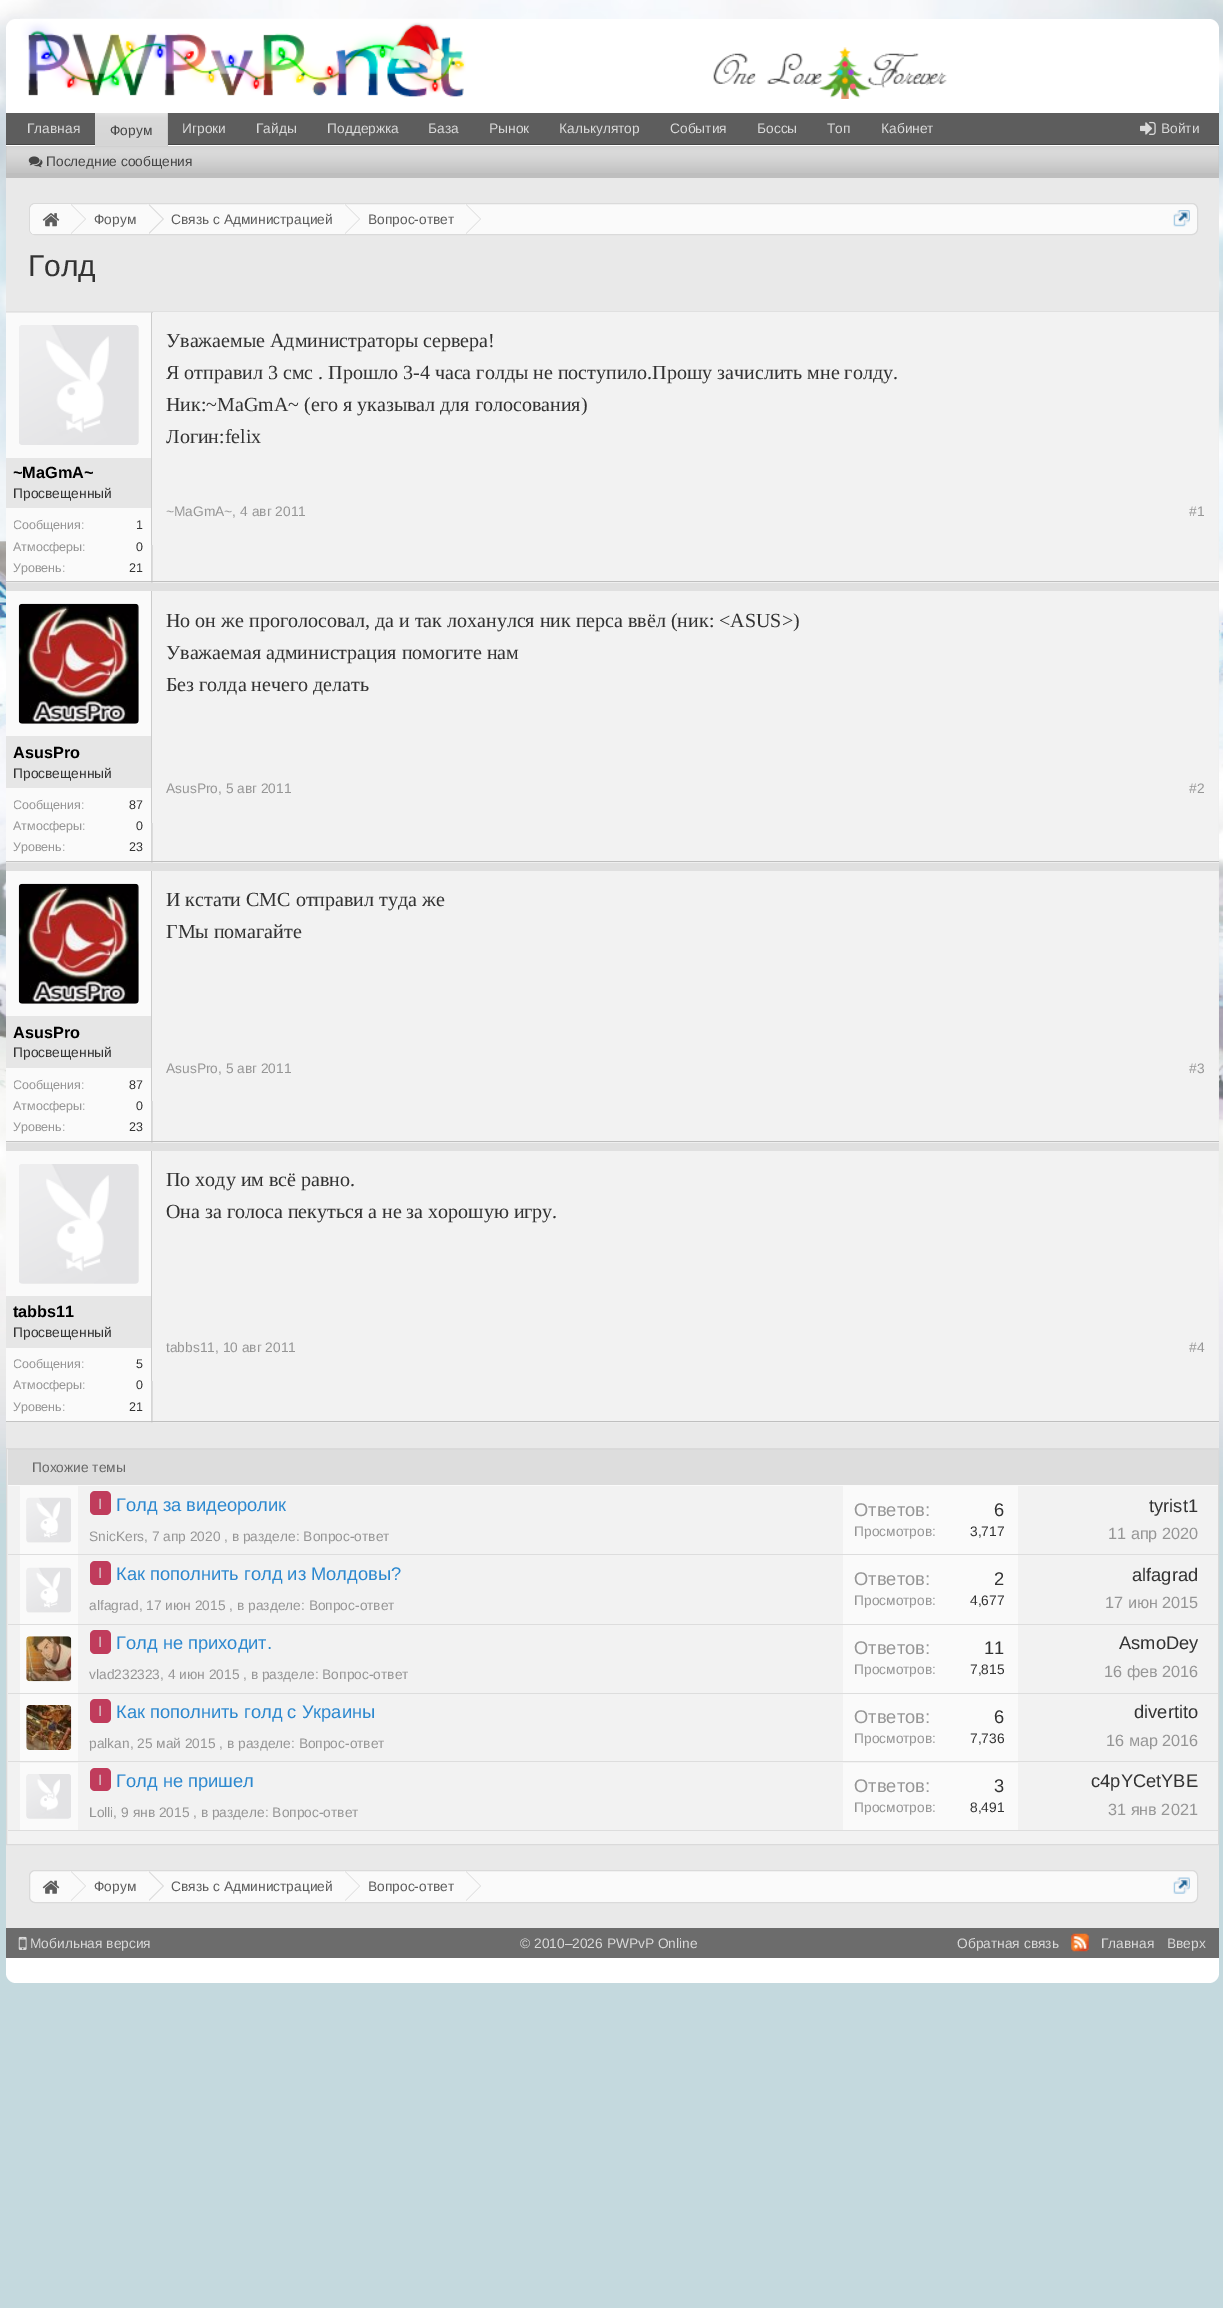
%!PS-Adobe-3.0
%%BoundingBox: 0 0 1223 2308
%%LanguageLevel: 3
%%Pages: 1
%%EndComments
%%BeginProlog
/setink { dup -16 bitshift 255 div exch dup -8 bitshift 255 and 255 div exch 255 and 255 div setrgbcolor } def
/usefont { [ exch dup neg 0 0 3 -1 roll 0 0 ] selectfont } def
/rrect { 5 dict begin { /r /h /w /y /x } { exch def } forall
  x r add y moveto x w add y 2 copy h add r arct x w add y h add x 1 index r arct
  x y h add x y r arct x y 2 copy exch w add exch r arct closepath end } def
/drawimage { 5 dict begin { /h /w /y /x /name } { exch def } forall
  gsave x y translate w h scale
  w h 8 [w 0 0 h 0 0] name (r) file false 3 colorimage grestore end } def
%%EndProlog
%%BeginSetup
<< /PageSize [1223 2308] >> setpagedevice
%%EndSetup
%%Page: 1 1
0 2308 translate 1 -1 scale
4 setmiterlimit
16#C4D9DE setink
0 0 1223 2308 rectfill
(img1.raw) 0 0 1223 1503 drawimage
16#FFFFFF setink
16 19 moveto 1209 19 lineto 1214.5 19 1219 23.5 1219 29 curveto 1219 113 lineto 6 113 lineto 6 29 lineto 6 23.5 10.5 19 16 19 curveto closepath fill
(img2.raw) 20 18 446 79 drawimage
(img4.raw) 756 47 203 52 drawimage
(img3.raw) 713 47 246 52 drawimage
[
    [6 145 1213 1 16#FFFFFF]
    [6 113 1213 31 16#5D5D5D]
    [6 144 1213 1 16#464646]
] { aload pop setink rectfill } forall
/LiberationSans-Regular 13.75 usefont
16#DADADA setink
[
    [(Главная) 27 133]
    [(Игроки) 182 133]
    [(Гайды) 256 133]
    [(Поддержка) 327 133]
    [(База) 428 133]
    [(Рынок) 489 133]
    [(Калькулятор) 559 133]
    [(События) 670 133]
    [(Боссы) 757 133]
    [(Топ) 827 133]
    [(Кабинет) 881 133]
] { aload pop moveto show } forall
16#BEBEBE setink
95 113 73 33 rectfill
(img5.raw) 95 113 73 33 drawimage
16#464646 setink
110 135 moveto (Форум) show
16#BEBEBE setink
6 146 1213 32 rectfill
(img6.raw) 6 146 1213 27 drawimage
(img7.raw) 28 156 15 12 drawimage
16#464646 setink
46 166 moveto (Последние сообщения) show
(img8.raw) 1140 121 16 14 drawimage
16#DADADA setink
1161 133 moveto (Войти) show
16#E9E9E9 setink
6 178 1213 1750 rectfill
16#FAFAFA setink
29.5 203.5 1168 31 5.5 rrect gsave fill grestore
16#DADADA setink
stroke
gsave
30 204 1166 30 5 rrect clip newpath
16#FAFAFA setink
36 204 moveto 71 204 lineto 71 235 lineto 36 235 lineto 32.5 235 30 232.5 30 229 curveto 30 210 lineto 30 206.5 32.5 204 36 204 curveto closepath fill
grestore
(img9.raw) 42 213 18 14 drawimage
71 234 moveto 71 204 lineto 86 219 lineto closepath fill
16#FAFAFA setink
70 234 moveto 70 204 lineto 85 219 lineto closepath fill
16#5D5D5D setink
94 224 moveto (Форум) show
16#DADADA setink
149 234 moveto 149 204 lineto 164 219 lineto closepath fill
16#FAFAFA setink
147.5 234 moveto 147.5 204 lineto 162.5 219 lineto closepath fill
16#5D5D5D setink
171 224 moveto (Связь с Администрацией) show
16#DADADA setink
345 234 moveto 345 204 lineto 360 219 lineto closepath fill
16#FAFAFA setink
344 234 moveto 344 204 lineto 359 219 lineto closepath fill
16#5D5D5D setink
368 224 moveto (Вопрос-ответ) show
16#DADADA setink
466 234 moveto 466 204 lineto 481 219 lineto closepath fill
16#FAFAFA setink
465 234 moveto 465 204 lineto 480 219 lineto closepath fill
(img10.raw) 1173 210 17 17 drawimage
/LiberationSans-Regular 30 usefont
16#333333 setink
28 276 moveto (Голд) show
(img11.raw) 151 312 1068 271 drawimage
[
    [6 311 1213 1 16#E0E0E0]
    [6 581 1213 1 16#BFBFBF]
    [6 458 145 50 16#E6E6E6]
] { aload pop setink rectfill } forall
(img12.raw) 6 581 145 1 drawimage
16#FAFAFA setink
6 313 145 145 rectfill
16#F2F2F2 setink
19 325 120 120 4 rrect fill
(img13.raw) 19 325 120 120 drawimage
/LiberationSans-Bold 16.25 usefont
16#000000 setink
13 478 moveto (~MaGmA~) show
/LiberationSans-Regular 13.75 usefont
16#333333 setink
13 498 moveto (Просвещенный) show
16#FAFAFA setink
6 508 145 73 rectfill
gsave
14 515 130 19 rectclip
/LiberationSans-Regular 12.5 usefont
16#969696 setink
13 529 moveto (Сообщения:) show
grestore
/LiberationSans-Regular 12.5 usefont
16#333333 setink
136 529 moveto (1) show
16#969696 setink
13 551 moveto (Атмосферы:) show
16#333333 setink
136 551 moveto (0) show
16#969696 setink
13 572 moveto (Уровень:) show
16#333333 setink
129 572 moveto (21) show
16#F2F2F2 setink
152 313 1 232 rectfill
16#CCCCCC setink
151 313 1 232 rectfill
/LiberationSerif-Regular 20 usefont
16#333333 setink
[
    [(Уважаемые Администраторы сервера!) 166 347]
    [(Я отправил 3 смс . Прошло 3-4 часа голды не поступило.Прошу зачислить мне голду.) 166 379]
    [(Ник:~MaGmA~ \(его я указывал для голосования\)) 166 411]
    [(Логин:felix) 166 443]
] { aload pop moveto show } forall
/LiberationSans-Regular 13.75 usefont
16#969696 setink
166 516 moveto (~MaGmA~, 4 авг 2011) show
1189 516 moveto (#1) show
(img14.raw) 151 582 1068 281 drawimage
[
    [6 583 1213 8 16#E0E0E0]
    [6 861 1213 1 16#BFBFBF]
    [6 736 145 52 16#E6E6E6]
] { aload pop setink rectfill } forall
(img12.raw) 6 861 145 1 drawimage
16#FAFAFA setink
6 591 145 145 rectfill
16#F2F2F2 setink
19 604 120 120 4 rrect fill
(img15.raw) 18 603 121 121 drawimage
/LiberationSans-Bold 16.25 usefont
16#000000 setink
13 758 moveto (AsusPro) show
/LiberationSans-Regular 13.75 usefont
16#333333 setink
13 778 moveto (Просвещенный) show
16#FAFAFA setink
6 788 145 73 rectfill
gsave
14 795 130 19 rectclip
/LiberationSans-Regular 12.5 usefont
16#969696 setink
13 809 moveto (Сообщения:) show
grestore
/LiberationSans-Regular 12.5 usefont
16#333333 setink
129 809 moveto (87) show
16#969696 setink
13 830 moveto (Атмосферы:) show
16#333333 setink
136 830 moveto (0) show
16#969696 setink
13 851 moveto (Уровень:) show
16#333333 setink
129 851 moveto (23) show
16#F2F2F2 setink
152 591 1 232 rectfill
16#CCCCCC setink
151 591 1 232 rectfill
/LiberationSerif-Regular 20 usefont
16#333333 setink
[
    [(Но он же проголосовал, да и так лоханулся ник перса ввёл \(ник: <ASUS>\)) 166 627]
    [(Уважаемая администрация помогите нам) 166 659]
    [(Без голда нечего делать) 166 691]
] { aload pop moveto show } forall
/LiberationSans-Regular 13.75 usefont
16#969696 setink
166 793 moveto (AsusPro, 5 авг 2011) show
1189 793 moveto (#2) show
(img14.raw) 151 862 1068 281 drawimage
[
    [6 863 1213 8 16#E0E0E0]
    [6 1141 1213 1 16#BFBFBF]
    [6 1016 145 52 16#E6E6E6]
] { aload pop setink rectfill } forall
(img12.raw) 6 1141 145 1 drawimage
16#FAFAFA setink
6 871 145 145 rectfill
16#F2F2F2 setink
19 884 120 120 4 rrect fill
(img15.raw) 18 883 121 121 drawimage
/LiberationSans-Bold 16.25 usefont
16#000000 setink
13 1038 moveto (AsusPro) show
/LiberationSans-Regular 13.75 usefont
16#333333 setink
13 1057 moveto (Просвещенный) show
16#FAFAFA setink
6 1068 145 73 rectfill
gsave
14 1075 130 19 rectclip
/LiberationSans-Regular 12.5 usefont
16#969696 setink
13 1089 moveto (Сообщения:) show
grestore
/LiberationSans-Regular 12.5 usefont
16#333333 setink
129 1089 moveto (87) show
16#969696 setink
13 1110 moveto (Атмосферы:) show
16#333333 setink
136 1110 moveto (0) show
16#969696 setink
13 1131 moveto (Уровень:) show
16#333333 setink
129 1131 moveto (23) show
16#F2F2F2 setink
152 871 1 230 rectfill
16#CCCCCC setink
151 871 1 230 rectfill
/LiberationSerif-Regular 20 usefont
16#333333 setink
166 906 moveto (И кстати СМС отправил туда же) show
166 938 moveto (ГМы помагайте) show
/LiberationSans-Regular 13.75 usefont
16#969696 setink
166 1073 moveto (AsusPro, 5 авг 2011) show
1189 1073 moveto (#3) show
(img14.raw) 151 1142 1068 281 drawimage
[
    [6 1143 1213 8 16#E0E0E0]
    [6 1421 1213 1 16#BFBFBF]
    [6 1296 145 52 16#E6E6E6]
] { aload pop setink rectfill } forall
(img12.raw) 6 1421 145 1 drawimage
16#FAFAFA setink
6 1151 145 145 rectfill
16#F2F2F2 setink
19 1164 120 120 4 rrect fill
(img16.raw) 19 1164 120 120 drawimage
/LiberationSans-Bold 16.25 usefont
16#000000 setink
13 1317 moveto (tabbs11) show
/LiberationSans-Regular 13.75 usefont
16#333333 setink
13 1337 moveto (Просвещенный) show
16#FAFAFA setink
6 1348 145 73 rectfill
gsave
14 1355 130 19 rectclip
/LiberationSans-Regular 12.5 usefont
16#969696 setink
13 1368 moveto (Сообщения:) show
grestore
/LiberationSans-Regular 12.5 usefont
16#333333 setink
136 1368 moveto (5) show
16#969696 setink
13 1389 moveto (Атмосферы:) show
16#333333 setink
136 1389 moveto (0) show
16#969696 setink
13 1411 moveto (Уровень:) show
16#333333 setink
129 1411 moveto (21) show
16#F2F2F2 setink
152 1151 1 230 rectfill
16#CCCCCC setink
151 1151 1 230 rectfill
/LiberationSerif-Regular 20 usefont
16#333333 setink
166 1186 moveto (По ходу им всё равно.) show
166 1218 moveto (Она за голоса пекуться а не за хорошую игру.) show
/LiberationSans-Regular 13.75 usefont
16#969696 setink
166 1352 moveto (tabbs11, 10 авг 2011) show
1189 1352 moveto (#4) show
16#F2F2F2 setink
6.5 1448.5 moveto 1218.5 1448.5 lineto 1218.5 1844.5 lineto 6.5 1844.5 lineto closepath gsave fill grestore
16#DADADA setink
stroke
[
    [8 1450 1210 35 16#DDDDDD]
    [8 1449 1210 1 16#D9D9D9]
    [8 1485 1210 1 16#FAFAFA]
] { aload pop setink rectfill } forall
16#686868 setink
32 1472 moveto (Похожие темы) show
16#DDDDDD setink
8 1554 1210 1 rectfill
16#FAFAFA setink
20 1486 58 68 rectfill
16#F2F2F2 setink
26 1498 45 45 4 rrect fill
(img17.raw) 26 1497 45 45 drawimage
16#C03C5C setink
90 1491 21 24 5 rrect fill
/LiberationSans-Regular 15 usefont
16#DADADA setink
98 1509 moveto (I) show
/LiberationSans-Regular 18.3 usefont
16#2C88CF setink
116 1511 moveto (Голд за видеоролик) show
/LiberationSans-Regular 13.75 usefont
16#969696 setink
89 1541 moveto (SnicKers, 7 апр 2020 , в разделе: Вопрос-ответ) show
16#FAFAFA setink
843 1486 175 68 rectfill
/LiberationSans-Regular 18.3 usefont
16#969696 setink
854 1516 moveto (Ответов:) show
16#333333 setink
994 1516 moveto (6) show
/LiberationSans-Regular 13.75 usefont
16#969696 setink
854 1536 moveto (Просмотров:) show
16#333333 setink
970 1536 moveto (3,717) show
/LiberationSans-Regular 18.3 usefont
1149 1512 moveto (tyrist1) show
/LiberationSans-Regular 16.25 usefont
16#969696 setink
1108 1539 moveto (11 апр 2020) show
16#DDDDDD setink
8 1624 1210 1 rectfill
16#FAFAFA setink
20 1555 58 69 rectfill
16#F2F2F2 setink
26 1568 45 45 4 rrect fill
(img17.raw) 26 1567 45 45 drawimage
16#C03C5C setink
90 1561 21 24 5 rrect fill
/LiberationSans-Regular 15 usefont
16#DADADA setink
98 1578 moveto (I) show
/LiberationSans-Regular 18.3 usefont
16#2C88CF setink
116 1580 moveto (Как пополнить голд из Молдовы?) show
/LiberationSans-Regular 13.75 usefont
16#969696 setink
89 1610 moveto (alfagrad, 17 июн 2015 , в разделе: Вопрос-ответ) show
16#FAFAFA setink
843 1555 175 69 rectfill
/LiberationSans-Regular 18.3 usefont
16#969696 setink
854 1585 moveto (Ответов:) show
16#333333 setink
994 1585 moveto (2) show
/LiberationSans-Regular 13.75 usefont
16#969696 setink
854 1605 moveto (Просмотров:) show
16#333333 setink
970 1605 moveto (4,677) show
/LiberationSans-Regular 18.3 usefont
1132 1581 moveto (alfagrad) show
/LiberationSans-Regular 16.25 usefont
16#969696 setink
1105 1608 moveto (17 июн 2015) show
16#DDDDDD setink
8 1693 1210 1 rectfill
16#FAFAFA setink
20 1625 58 68 rectfill
16#F2F2F2 setink
26 1636 45 45 4 rrect fill
(img18.raw) 26 1636 46 46 drawimage
16#C03C5C setink
90 1630 21 24 5 rrect fill
/LiberationSans-Regular 15 usefont
16#DADADA setink
98 1647 moveto (I) show
/LiberationSans-Regular 18.3 usefont
16#2C88CF setink
116 1649 moveto (Голд не приходит.) show
/LiberationSans-Regular 13.75 usefont
16#969696 setink
89 1679 moveto (vlad232323, 4 июн 2015 , в разделе: Вопрос-ответ) show
16#FAFAFA setink
843 1625 175 68 rectfill
/LiberationSans-Regular 18.3 usefont
16#969696 setink
854 1654 moveto (Ответов:) show
16#333333 setink
984 1654 moveto (11) show
/LiberationSans-Regular 13.75 usefont
16#969696 setink
854 1674 moveto (Просмотров:) show
16#333333 setink
970 1674 moveto (7,815) show
/LiberationSans-Regular 18.3 usefont
1119 1649 moveto (AsmoDey) show
/LiberationSans-Regular 16.25 usefont
16#969696 setink
1104 1677 moveto (16 фев 2016) show
16#DDDDDD setink
8 1761 1210 1 rectfill
16#FAFAFA setink
20 1694 58 67 rectfill
16#F2F2F2 setink
26 1705 45 45 4 rrect fill
(img19.raw) 26 1705 46 45 drawimage
16#C03C5C setink
90 1699 21 24 5 rrect fill
/LiberationSans-Regular 15 usefont
16#DADADA setink
98 1716 moveto (I) show
/LiberationSans-Regular 18.3 usefont
16#2C88CF setink
116 1718 moveto (Как пополнить голд с Украины) show
/LiberationSans-Regular 13.75 usefont
16#969696 setink
89 1748 moveto (palkan, 25 май 2015 , в разделе: Вопрос-ответ) show
16#FAFAFA setink
843 1694 175 67 rectfill
/LiberationSans-Regular 18.3 usefont
16#969696 setink
854 1723 moveto (Ответов:) show
16#333333 setink
994 1723 moveto (6) show
/LiberationSans-Regular 13.75 usefont
16#969696 setink
854 1743 moveto (Просмотров:) show
16#333333 setink
970 1743 moveto (7,736) show
/LiberationSans-Regular 18.3 usefont
1134 1718 moveto (divertito) show
/LiberationSans-Regular 16.25 usefont
16#969696 setink
1106 1746 moveto (16 мар 2016) show
16#DDDDDD setink
8 1830 1210 1 rectfill
16#FAFAFA setink
20 1763 58 67 rectfill
16#F2F2F2 setink
26 1774 45 45 4 rrect fill
(img20.raw) 26 1774 45 45 drawimage
16#C03C5C setink
90 1768 21 23 5 rrect fill
/LiberationSans-Regular 15 usefont
16#DADADA setink
98 1785 moveto (I) show
/LiberationSans-Regular 18.3 usefont
16#2C88CF setink
116 1787 moveto (Голд не пришел) show
/LiberationSans-Regular 13.75 usefont
16#969696 setink
89 1817 moveto (Lolli, 9 янв 2015 , в разделе: Вопрос-ответ) show
16#FAFAFA setink
843 1763 175 67 rectfill
/LiberationSans-Regular 18.3 usefont
16#969696 setink
854 1792 moveto (Ответов:) show
16#333333 setink
994 1792 moveto (3) show
/LiberationSans-Regular 13.75 usefont
16#969696 setink
854 1812 moveto (Просмотров:) show
16#333333 setink
970 1812 moveto (8,491) show
/LiberationSans-Regular 18.3 usefont
1091 1787 moveto (c4pYCetYBE) show
/LiberationSans-Regular 16.25 usefont
16#969696 setink
1108 1815 moveto (31 янв 2021) show
16#FAFAFA setink
29.5 1870.5 1168 32 5.5 rrect gsave fill grestore
16#DADADA setink
stroke
(img21.raw) 42 1880 18 14 drawimage
71 1901 moveto 71 1871 lineto 86 1886 lineto closepath fill
16#FAFAFA setink
70 1901 moveto 70 1871 lineto 85 1886 lineto closepath fill
/LiberationSans-Regular 13.75 usefont
16#5D5D5D setink
94 1891 moveto (Форум) show
16#DADADA setink
149 1901 moveto 149 1871 lineto 164 1886 lineto closepath fill
16#FAFAFA setink
147.5 1901 moveto 147.5 1871 lineto 162.5 1886 lineto closepath fill
16#5D5D5D setink
171 1891 moveto (Связь с Администрацией) show
16#DADADA setink
345 1901 moveto 345 1871 lineto 360 1886 lineto closepath fill
16#FAFAFA setink
344 1901 moveto 344 1871 lineto 359 1886 lineto closepath fill
16#5D5D5D setink
368 1891 moveto (Вопрос-ответ) show
16#DADADA setink
466 1901 moveto 466 1871 lineto 481 1886 lineto closepath fill
16#FAFAFA setink
465 1901 moveto 465 1871 lineto 480 1886 lineto closepath fill
(img22.raw) 1173 1877 17 17 drawimage
16#6C6C6C setink
6 1928 1213 30 rectfill
(img23.raw) 18 1936 9 14 drawimage
16#DADADA setink
[
    [(Мобильная версия) 30 1948]
    [(© 2010–2026 PWPvP Online) 520 1948]
    [(Обратная связь) 957 1948]
] { aload pop moveto show } forall
(img24.raw) 1071 1933 18 19 drawimage
1101 1948 moveto (Главная) show
1167 1948 moveto (Вверх) show
16#FFFFFF setink
6 1958 moveto 1219 1958 lineto 1219 1973 lineto 1219 1978.5 1214.5 1983 1209 1983 curveto 16 1983 lineto 10.5 1983 6 1978.5 6 1973 curveto closepath fill
showpage
%%EOF
